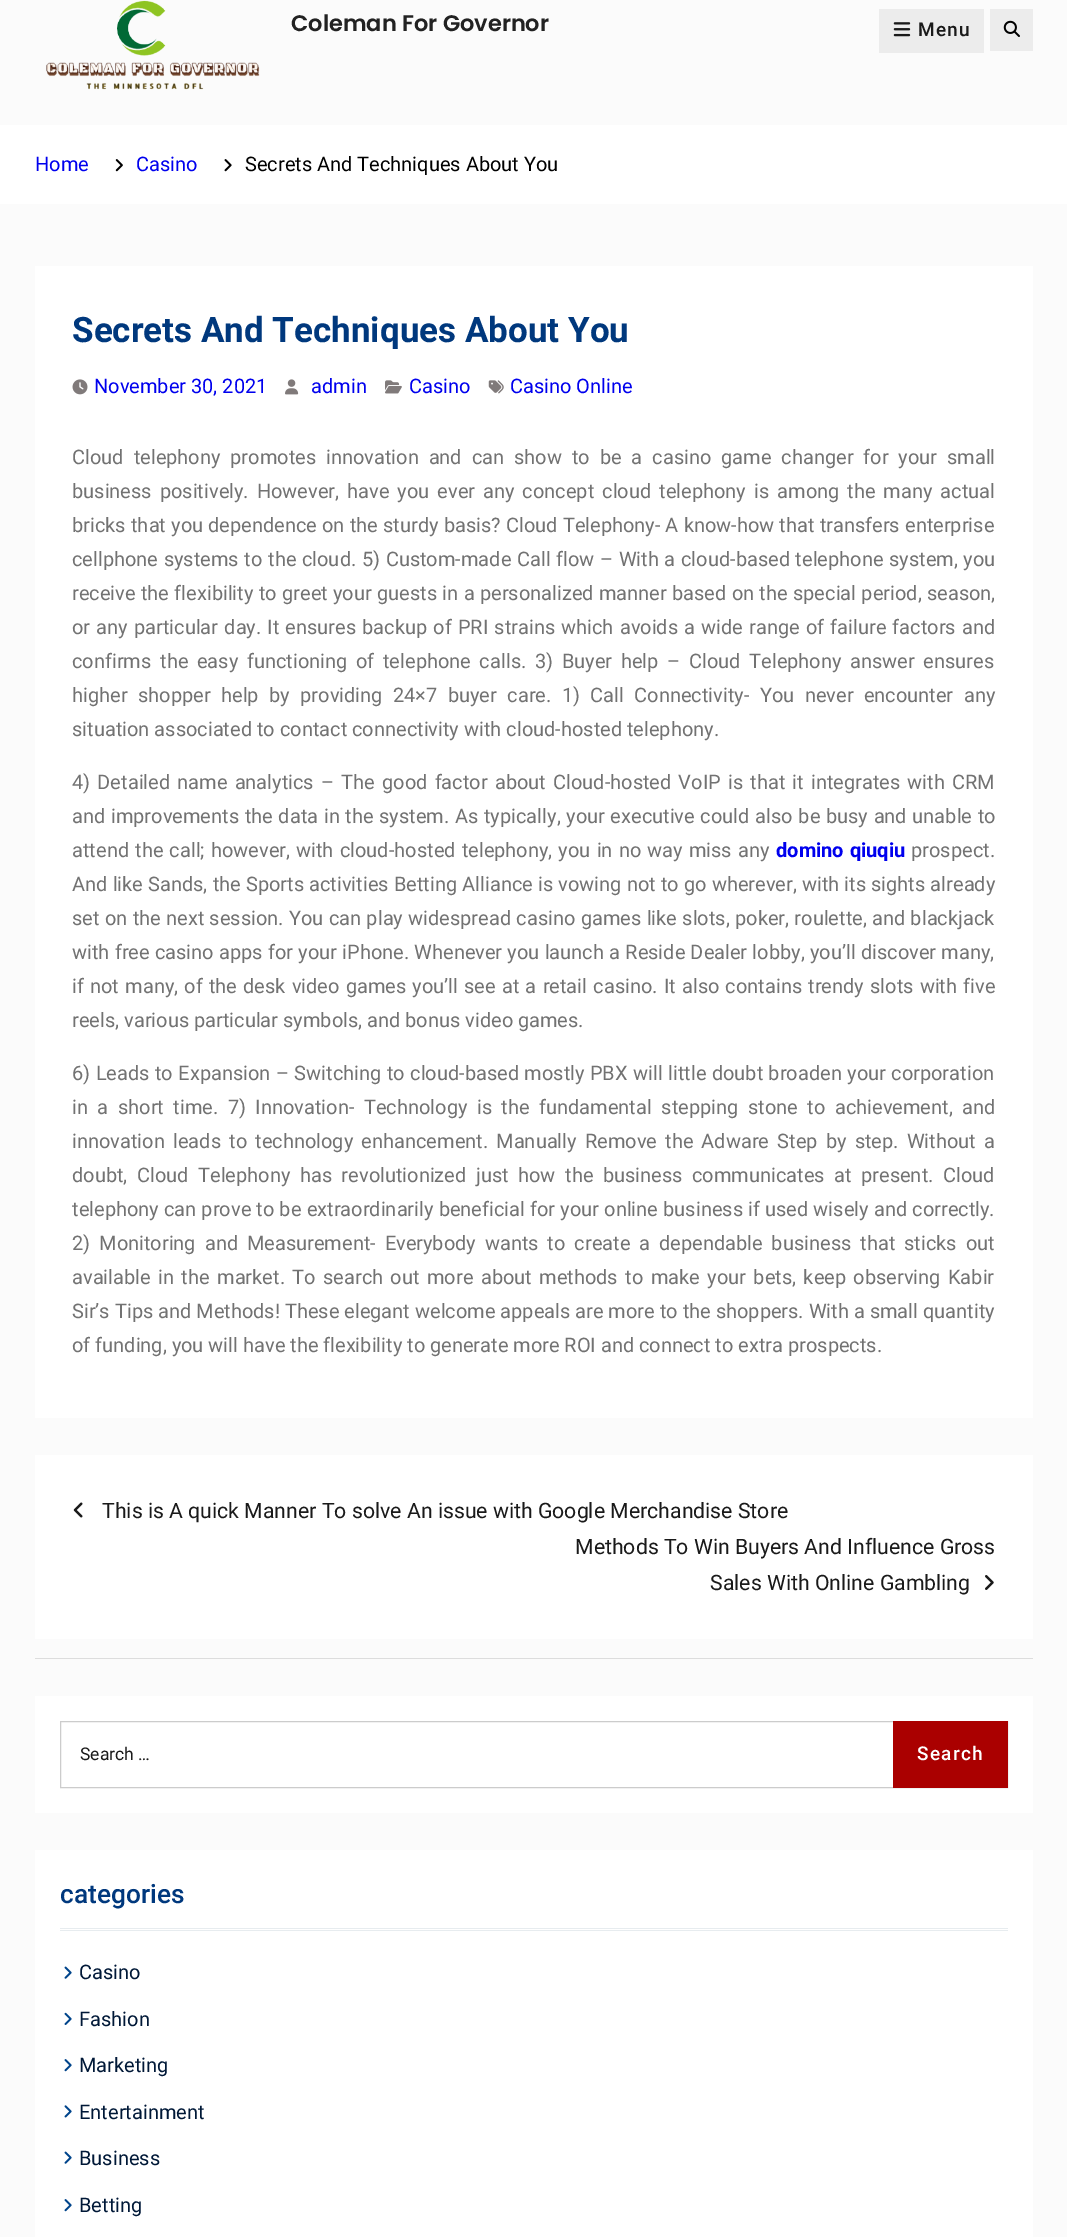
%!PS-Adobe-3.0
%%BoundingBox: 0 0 1067 2237
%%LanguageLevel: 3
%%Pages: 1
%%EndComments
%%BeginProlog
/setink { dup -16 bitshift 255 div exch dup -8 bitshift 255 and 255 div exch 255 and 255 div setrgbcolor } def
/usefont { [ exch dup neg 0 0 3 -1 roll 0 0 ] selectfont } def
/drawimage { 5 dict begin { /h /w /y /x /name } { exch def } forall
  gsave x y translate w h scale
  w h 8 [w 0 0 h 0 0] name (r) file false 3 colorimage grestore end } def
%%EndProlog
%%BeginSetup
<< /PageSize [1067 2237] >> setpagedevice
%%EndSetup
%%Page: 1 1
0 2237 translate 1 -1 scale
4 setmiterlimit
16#FBFBFB setink
0 0 1067 2237 rectfill
(img1.raw) 46 0 214 90 drawimage
/Poppins-SemiBold 22.5 usefont
16#222222 setink
291 31 moveto (Coleman For Governor) show
16#ECECEC setink
879 9 105 44 rectfill
(img2.raw) 893 22 18 15 drawimage
/Roboto-Medium 19 usefont
16#1A1A1A setink
918 36 moveto 1.25 0 (Menu) ashow
16#ECECEC setink
990 9 43 42 rectfill
(img3.raw) 1003 20 17 17 drawimage
16#FFFFFF setink
0 125 1067 79 rectfill
/Roboto-Regular 20 usefont
16#0000EE setink
35 171 moveto (Home) show
(img4.raw) 115 159 8 13 drawimage
136 171 moveto (Casino) show
(img5.raw) 224 159 8 13 drawimage
16#000000 setink
245 171 moveto (Secrets And Techniques About You) show
16#DDDDDD setink
35 1658 998 1 rectfill
16#FFFFFF setink
35 266 998 1152 rectfill
/Roboto-Bold 35 usefont
16#00387D setink
72 342 moveto (Secrets And Techniques About You) show
(img6.raw) 72 379 16 16 drawimage
/Roboto-Regular 20 usefont
16#0000EE setink
94 393 moveto (November 30, 2021) show
(img7.raw) 285 379 14 16 drawimage
311 393 moveto (admin) show
(img8.raw) 385 380 17 14 drawimage
409 393 moveto (Casino) show
(img9.raw) 488 380 16 14 drawimage
510 393 moveto (Casino Online) show
16#727272 setink
72 464 moveto 5 0 32 (Cloud telephony promotes innovation and can show to be a casino game changer for your small) widthshow
72 498 moveto 3.1 0 32 (business positively. However, have you ever any concept cloud telephony is among the many actual) widthshow
72 532 moveto 0.25 0 32 (bricks that you dependence on the sturdy basis? Cloud Telephony- A know-how that transfers enterprise) widthshow
72 566 moveto 0.7 0 32 (cellphone systems to the cloud. 5\) Custom-made Call flow – With a cloud-based telephone system, you) widthshow
72 600 moveto 0.4 0 32 (receive the flexibility to greet your guests in a personalized manner based on the special period, season,) widthshow
72 634 moveto 1.2 0 32 (or any particular day. It ensures backup of PRI strains which avoids a wide range of failure factors and) widthshow
72 668 moveto 3.75 0 32 (confirms the easy functioning of telephone calls. 3\) Buyer help – Cloud Telephony answer ensures) widthshow
72 702 moveto 5.5 0 32 (higher shopper help by providing 24×7 buyer care. 1\) Call Connectivity- You never encounter any) widthshow
72 736 moveto (situation associated to contact connectivity with cloud-hosted telephony.) show
72 789 moveto 2.25 0 32 (4\) Detailed name analytics – The good factor about Cloud-hosted VoIP is that it integrates with CRM) widthshow
72 823 moveto 0.75 0 32 (and improvements the data in the system. As typically, your executive could also be busy and unable to) widthshow
72 857 moveto 1.25 0 32 (attend the call; however, with cloud-hosted telephony, you in no way miss any) widthshow
/Roboto-Bold 20 usefont
16#0000EE setink
776 857 moveto 1 0 32 (domino qiuqiu) widthshow
/Roboto-Regular 20 usefont
16#727272 setink
911 857 moveto (prospect.) show
72 891 moveto 0.2 0 32 (And like Sands, the Sports activities Betting Alliance is vowing not to go wherever, with its sights already) widthshow
72 925 moveto 0.4 0 32 (set on the next session. You can play widespread casino games like slots, poker, roulette, and blackjack) widthshow
72 959 moveto 0.3 0 32 (with free casino apps for your iPhone. Whenever you launch a Reside Dealer lobby, you’ll discover many,) widthshow
72 993 moveto 1.25 0 32 (if not many, of the desk video games you’ll see at a retail casino. It also contains trendy slots with five) widthshow
72 1027 moveto (reels, various particular symbols, and bonus video games.) show
72 1080 moveto 0.5 0 32 (6\) Leads to Expansion – Switching to cloud-based mostly PBX will little doubt broaden your corporation) widthshow
72 1114 moveto 4.6 0 32 (in a short time. 7\) Innovation- Technology is the fundamental stepping stone to achievement, and) widthshow
72 1148 moveto 3.25 0 32 (innovation leads to technology enhancement. Manually Remove the Adware Step by step. Without a) widthshow
72 1182 moveto 4.6 0 32 (doubt, Cloud Telephony has revolutionized just how the business communicates at present. Cloud) widthshow
72 1216 moveto 0.25 0 32 (telephony can prove to be extraordinarily beneficial for your online business if used wisely and correctly.) widthshow
72 1250 moveto 4 0 32 (2\) Monitoring and Measurement- Everybody wants to create a dependable business that sticks out) widthshow
72 1284 moveto 2.5 0 32 (available in the market. To search out more about methods to make your bets, keep observing Kabir) widthshow
72 1318 moveto (Sir’s Tips and Methods! These elegant welcome appeals are more to the shoppers. With a small quantity) show
72 1352 moveto (of funding, you will have the flexibility to generate more ROI and connect to extra prospects.) show
16#FFFFFF setink
35 1455 998 184 rectfill
(img10.raw) 73 1502 10 16 drawimage
/Roboto-Regular 21.25 usefont
16#1A1A1A setink
[
    [(This is A quick Manner To solve An issue with Google Merchandise Store) 102 1518]
    [(Methods To Win Buyers And Influence Gross) 575 1554]
    [(Sales With Online Gambling) 710 1590]
] { aload pop moveto show } forall
(img11.raw) 985 1575 9 15 drawimage
16#FFFFFF setink
35 1696 998 117 rectfill
16#CCCCCC setink
60.5 1721.5 947 66 rectstroke
/Roboto-Regular 17.5 usefont
16#1A1A1A setink
80 1760 moveto (Search …) show
16#AA0000 setink
893 1721 115 67 rectfill
/Roboto-Medium 19 usefont
16#FFFFFF setink
917 1760 moveto 1.25 0 (Search) ashow
[
    [35 1850 998 387 16#FFFFFF]
    [60 1928 948 1 16#E7ECEF]
    [60 1930 948 1 16#E7ECEF]
] { aload pop setink rectfill } forall
/Roboto-Medium 26.25 usefont
16#00387D setink
60 1903 moveto (categories) show
(img12.raw) 64 1966 8 13 drawimage
/Roboto-Regular 20 usefont
16#001837 setink
79 1979 moveto (Casino) show
(img13.raw) 64 2012 8 13 drawimage
79 2026 moveto (Fashion) show
(img14.raw) 64 2059 8 13 drawimage
79 2072 moveto (Marketing) show
(img15.raw) 64 2105 8 13 drawimage
79 2119 moveto (Entertainment) show
(img12.raw) 64 2151 8 13 drawimage
79 2165 moveto (Business) show
(img14.raw) 64 2199 8 13 drawimage
79 2212 moveto (Betting) show
showpage
%%EOF
